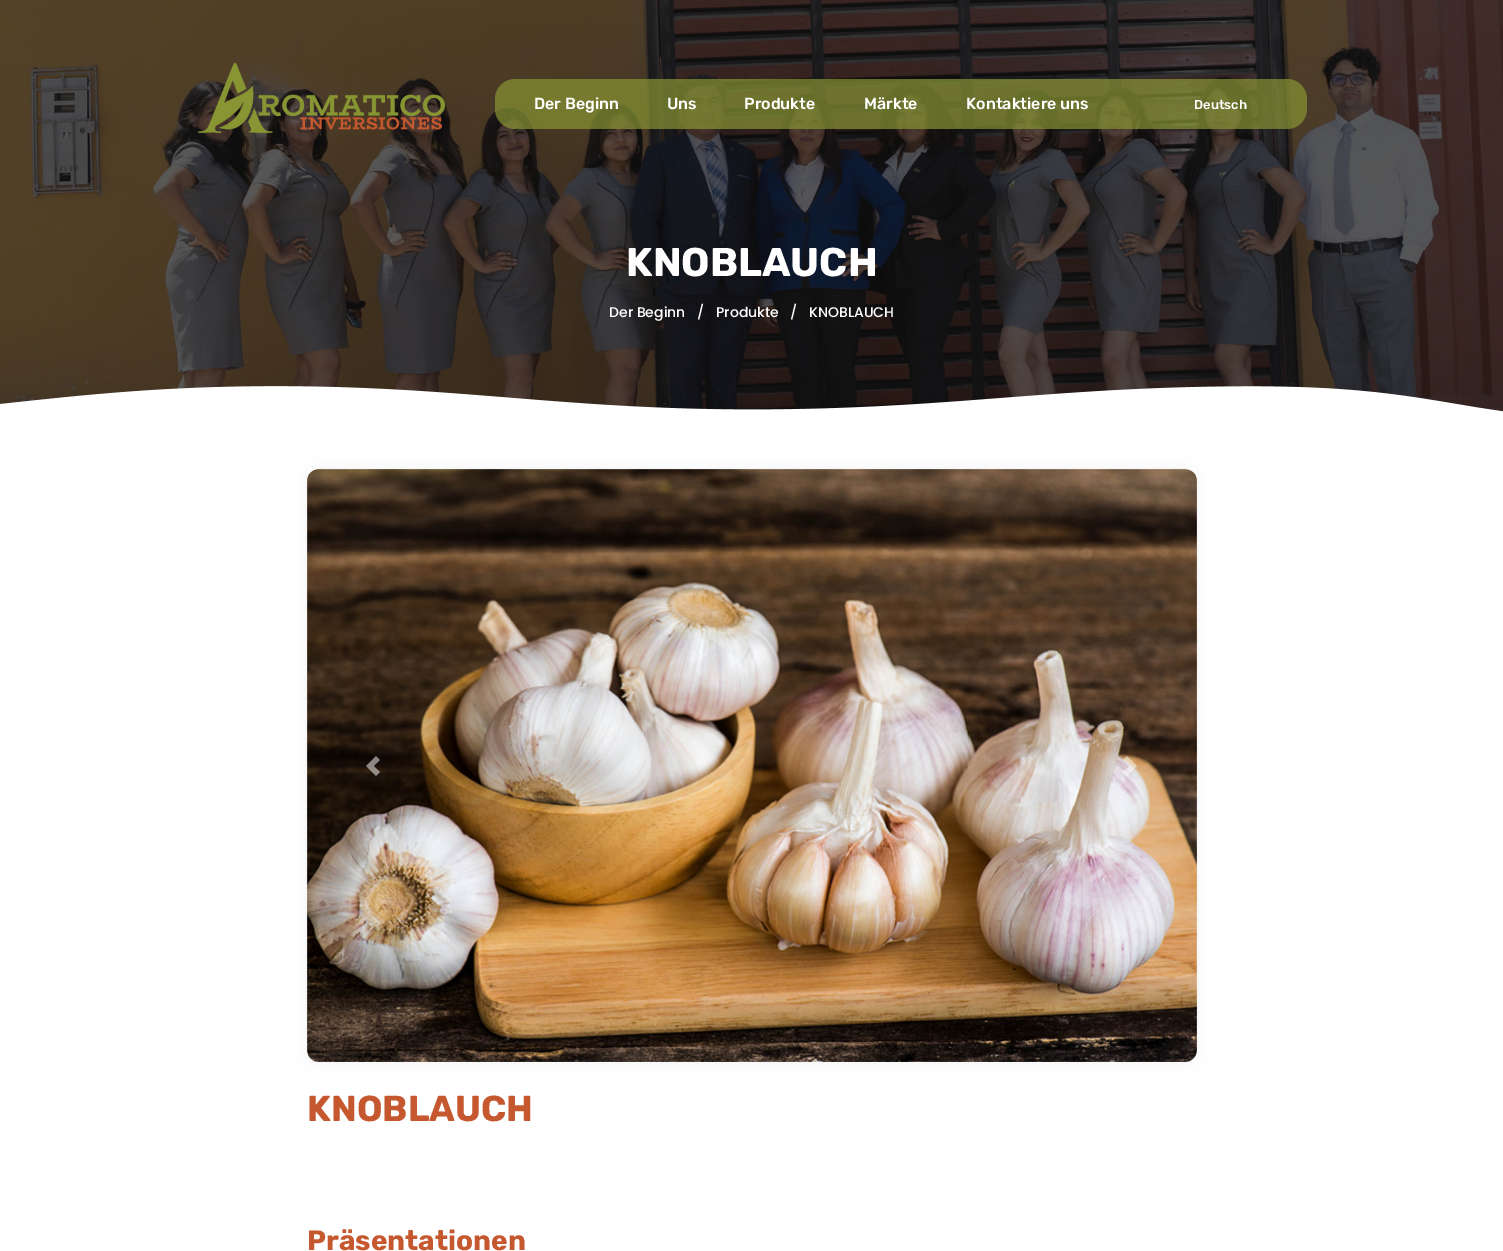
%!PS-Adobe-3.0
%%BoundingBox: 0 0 1503 1251
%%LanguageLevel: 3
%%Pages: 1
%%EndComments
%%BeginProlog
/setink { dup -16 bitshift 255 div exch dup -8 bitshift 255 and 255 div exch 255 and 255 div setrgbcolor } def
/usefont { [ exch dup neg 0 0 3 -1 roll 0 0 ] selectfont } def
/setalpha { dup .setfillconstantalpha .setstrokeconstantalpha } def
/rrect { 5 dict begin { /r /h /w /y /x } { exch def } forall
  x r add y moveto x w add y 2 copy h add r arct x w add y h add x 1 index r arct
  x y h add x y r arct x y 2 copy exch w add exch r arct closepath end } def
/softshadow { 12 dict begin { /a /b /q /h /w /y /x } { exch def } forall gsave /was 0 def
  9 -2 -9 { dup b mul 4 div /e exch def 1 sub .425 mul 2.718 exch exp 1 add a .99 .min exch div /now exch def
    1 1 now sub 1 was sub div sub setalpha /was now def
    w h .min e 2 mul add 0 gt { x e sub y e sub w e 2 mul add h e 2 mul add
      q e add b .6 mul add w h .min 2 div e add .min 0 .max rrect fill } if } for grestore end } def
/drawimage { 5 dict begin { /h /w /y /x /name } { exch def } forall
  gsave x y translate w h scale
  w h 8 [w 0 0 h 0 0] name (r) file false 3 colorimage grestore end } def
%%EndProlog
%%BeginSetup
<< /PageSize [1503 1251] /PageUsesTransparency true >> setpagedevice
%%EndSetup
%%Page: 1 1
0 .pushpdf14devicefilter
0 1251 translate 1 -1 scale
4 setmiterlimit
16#FFFFFF setink
0 0 1503 1251 rectfill
(img2.raw) 0 0 1503 412 drawimage
(img1.raw) 197 62 248 72 drawimage
0.7 setalpha
16#879533 setink
495 79 812 50 20 rrect fill
/Rubik-Medium 16 usefont
1 setalpha
16#FFFFFF setink
[
    [(Der Beginn) 534 109]
    [(Uns) 667 109]
    [(Produkte) 744 109]
    [(Märkte) 864 109]
    [(Kontaktiere uns) 966 109]
] { aload pop moveto show } forall
/Rubik-Medium 13 usefont
1194 109 moveto (Deutsch) show
/Rubik-Bold 40 usefont
626 276 moveto (KNOBLAUCH) show
/Poppins-Medium 14 usefont
[
    [(Der Beginn) 609 317]
    [(/) 697 317]
    [(Produkte) 716 317]
    [(/) 790 317]
    [(KNOBLAUCH) 809 317]
] { aload pop moveto show } forall
(img3.raw) 0 386 1503 35 drawimage
16#000000 setink
307 469 890 593 12 8 0.05 softshadow
(img4.raw) 307 469 890 593 drawimage
0.5 setalpha
16#FFFFFF setink
376 756 moveto 366 766 lineto 376 776 lineto 380 772 lineto 373.5 766 lineto 380 760 lineto closepath fill
1127 756 moveto 1123 760 lineto 1129.5 766 lineto 1123 772 lineto 1127 776 lineto 1137 766 lineto closepath fill
/Rubik-Bold 36 usefont
1 setalpha
16#C5582F setink
307 1121 moveto (KNOBLAUCH) show
/Rubik-Bold 28 usefont
307 1250 moveto (Präsentationen) show
.poppdf14devicefilter showpage
%%EOF
